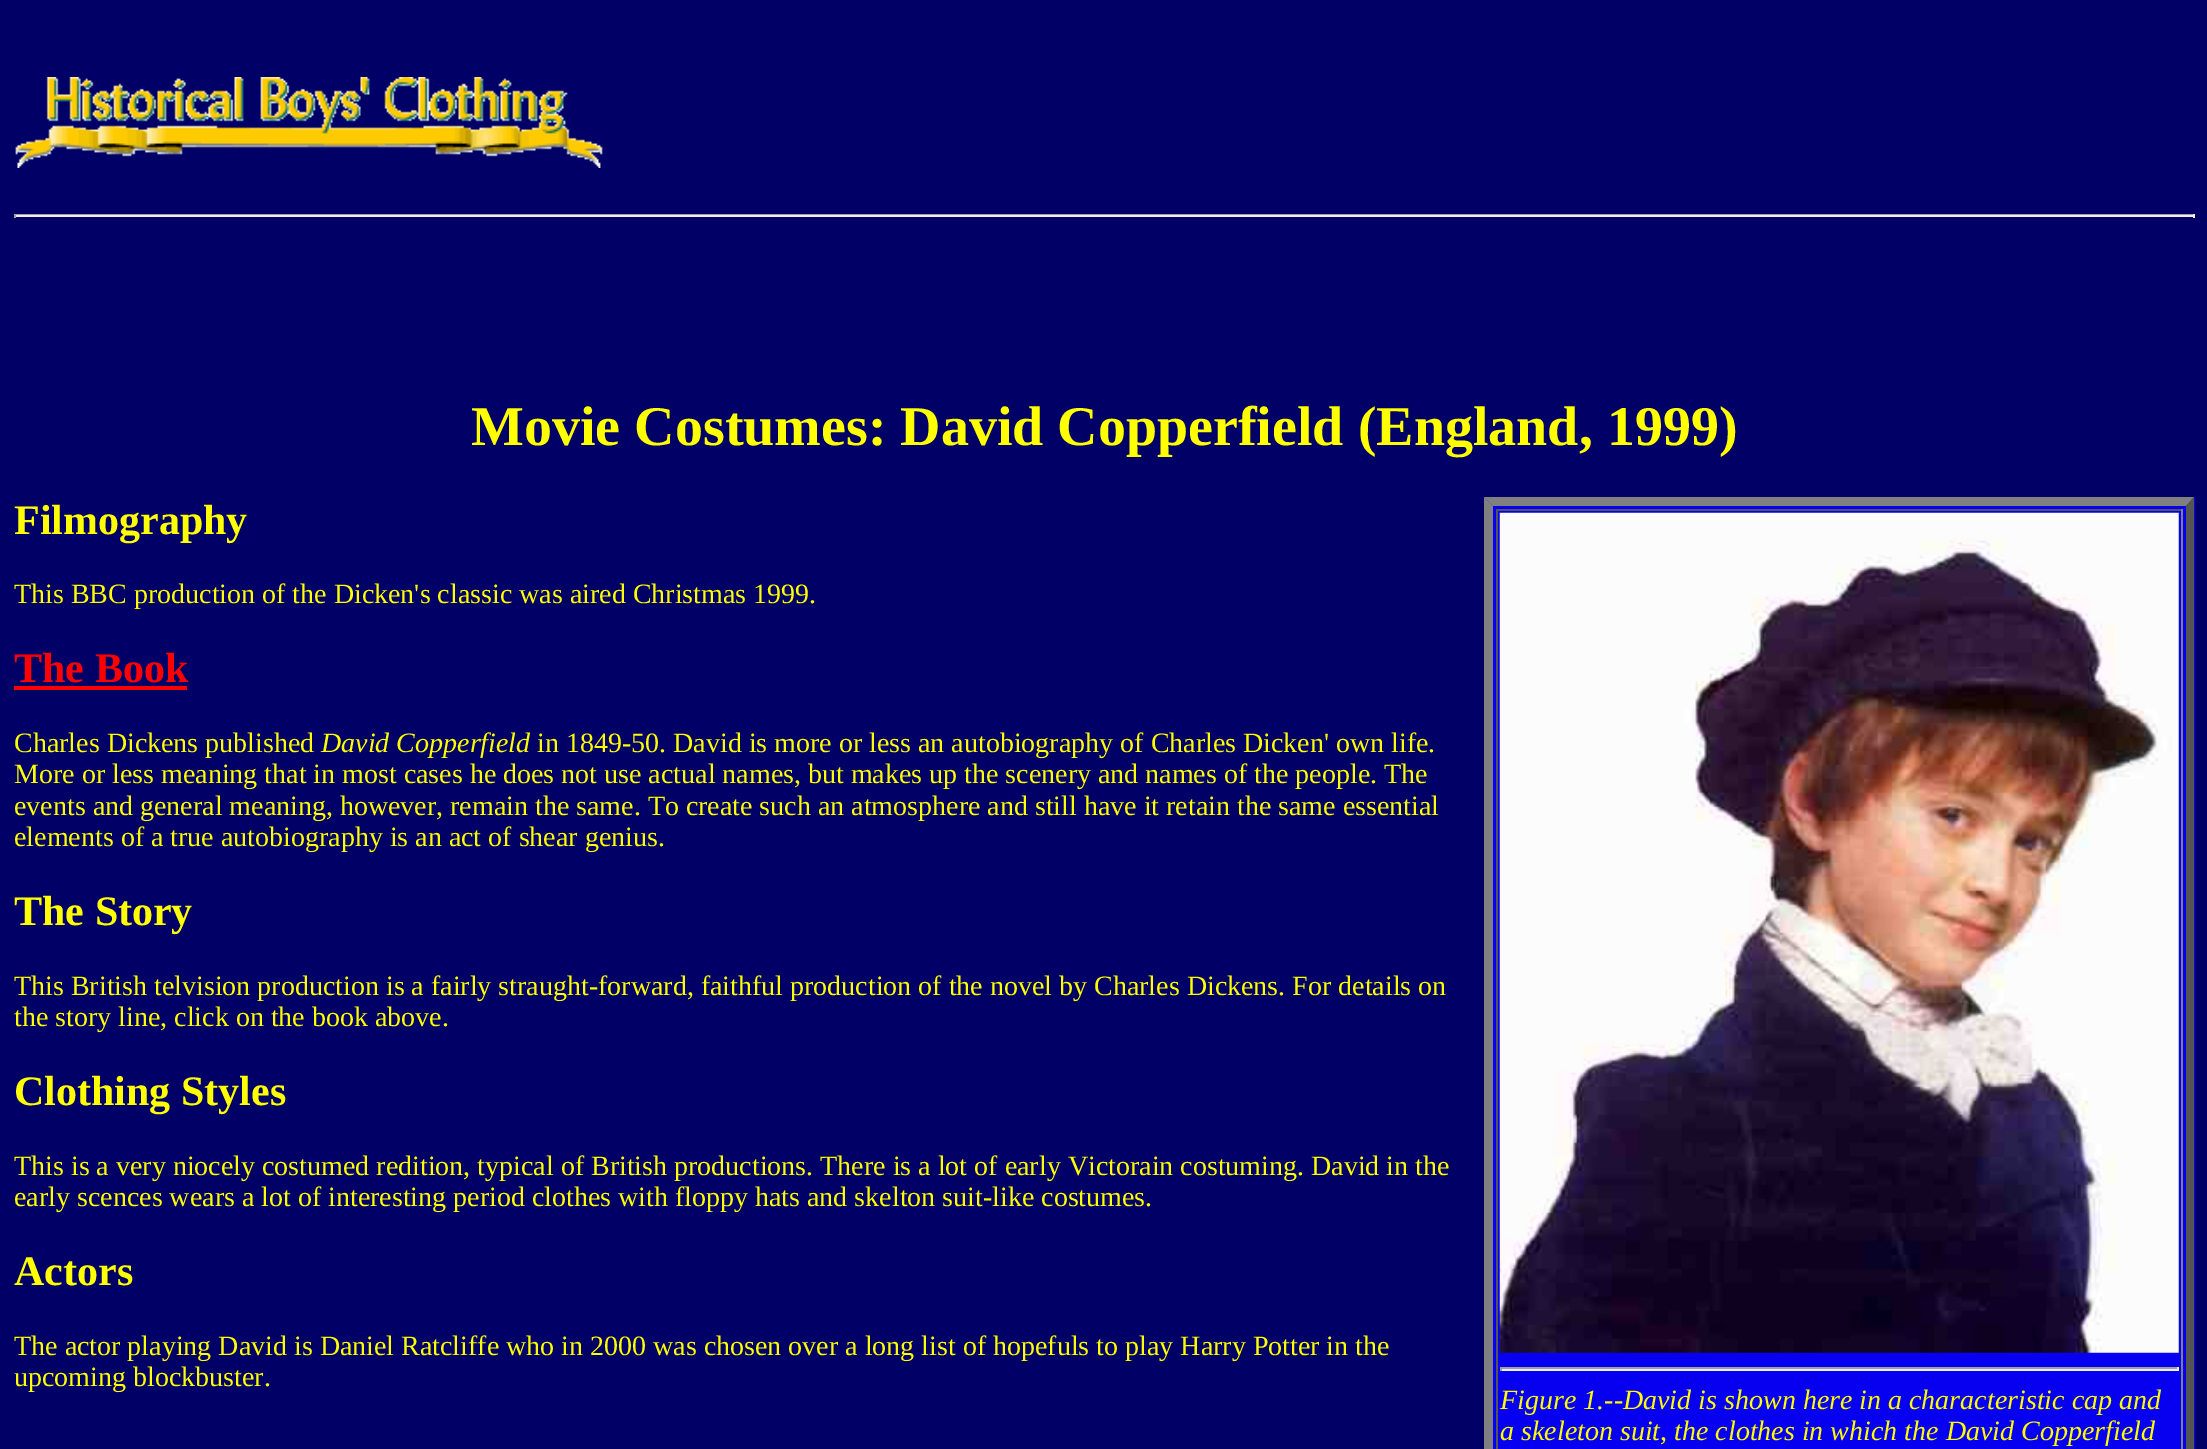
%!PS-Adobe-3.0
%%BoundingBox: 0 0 2207 1449
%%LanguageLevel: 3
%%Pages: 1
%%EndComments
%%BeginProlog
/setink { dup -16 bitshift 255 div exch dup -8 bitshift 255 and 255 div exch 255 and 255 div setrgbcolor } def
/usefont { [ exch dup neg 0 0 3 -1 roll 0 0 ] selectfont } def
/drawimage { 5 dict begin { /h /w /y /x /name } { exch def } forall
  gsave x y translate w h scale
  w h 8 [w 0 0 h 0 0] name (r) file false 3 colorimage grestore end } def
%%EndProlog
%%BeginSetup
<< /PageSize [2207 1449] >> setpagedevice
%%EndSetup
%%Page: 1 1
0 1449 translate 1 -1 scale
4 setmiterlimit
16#000066 setink
0 0 2207 1449 rectfill
(img1.raw) 15 77 588 91 drawimage
[
    [14 214 2181 1 16#9F9F9F]
    [2193 214 2 4 16#EEEEEE]
    [14 215 2181 2 16#EEEEEE]
    [14 214 2 4 16#9F9F9F]
] { aload pop setink rectfill } forall
/LiberationSerif-Bold 56 usefont
16#FFFF00 setink
471 445 moveto (Movie Costumes: David Copperfield \(England, 1999\)) show
/LiberationSerif-Bold 42 usefont
14 534 moveto (Filmography) show
/LiberationSerif-Regular 28 usefont
14 603 moveto (This BBC production of the Dicken's classic was aired Christmas 1999.) show
/LiberationSerif-Bold 42 usefont
16#FF0000 setink
14 682 moveto (The Book) show
14 686 173 4 rectfill
/LiberationSerif-Regular 28 usefont
16#FFFF00 setink
14 752 moveto (Charles Dickens published) show
/LiberationSerif-Italic 28 usefont
321 752 moveto (David Copperfield) show
/LiberationSerif-Regular 28 usefont
[
    [(in 1849-50. David is more or less an autobiography of Charles Dicken' own life.) 537 752]
    [(More or less meaning that in most cases he does not use actual names, but makes up the scenery and names of the people. The) 14 783]
    [(events and general meaning, however, remain the same. To create such an atmosphere and still have it retain the same essential) 14 815]
    [(elements of a true autobiography is an act of shear genius.) 14 846]
] { aload pop moveto show } forall
/LiberationSerif-Bold 42 usefont
14 925 moveto (The Story) show
/LiberationSerif-Regular 28 usefont
14 995 moveto (This British telvision production is a fairly straught-forward, faithful production of the novel by Charles Dickens. For details on) show
14 1026 moveto (the story line, click on the book above.) show
/LiberationSerif-Bold 42 usefont
14 1105 moveto (Clothing Styles) show
/LiberationSerif-Regular 28 usefont
14 1175 moveto (This is a very niocely costumed redition, typical of British productions. There is a lot of early Victorain costuming. David in the) show
14 1206 moveto (early scences wears a lot of interesting period clothes with floppy hats and skelton suit-like costumes.) show
/LiberationSerif-Bold 42 usefont
14 1285 moveto (Actors) show
/LiberationSerif-Regular 28 usefont
14 1355 moveto (The actor playing David is Daniel Ratcliffe who in 2000 was chosen over a long list of hopefuls to play Harry Potter in the) show
14 1386 moveto (upcoming blockbuster.) show
16#0700F0 setink
1484 497 711 952 rectfill
16#808080 setink
1484 497 moveto 2194 497 lineto 2186 506 lineto 1493 506 lineto closepath fill
16#555555 setink
2194 497 moveto 2194 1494 lineto 2186 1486 lineto 2186 506 lineto closepath fill
16#808080 setink
1484 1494 moveto 1484 497 lineto 1493 506 lineto 1493 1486 lineto closepath fill
[
    [1496 509 686 2 16#555555]
    [2181 509 2 940 16#808080]
    [1496 509 2 940 16#555555]
] { aload pop setink rectfill } forall
(img2.raw) 1499 512 680 841 drawimage
[
    [1500 1367 679 2 16#9F9F9F]
    [2177 1367 2 4 16#EEEEEE]
    [1500 1369 679 2 16#EEEEEE]
    [1500 1367 2 4 16#9F9F9F]
] { aload pop setink rectfill } forall
/LiberationSerif-Italic 28 usefont
16#FFFF00 setink
1500 1409 moveto (Figure 1.--David is shown here in a characteristic cap and) show
1500 1440 moveto (a skeleton suit, the clothes in which the David Copperfield) show
showpage
%%EOF
